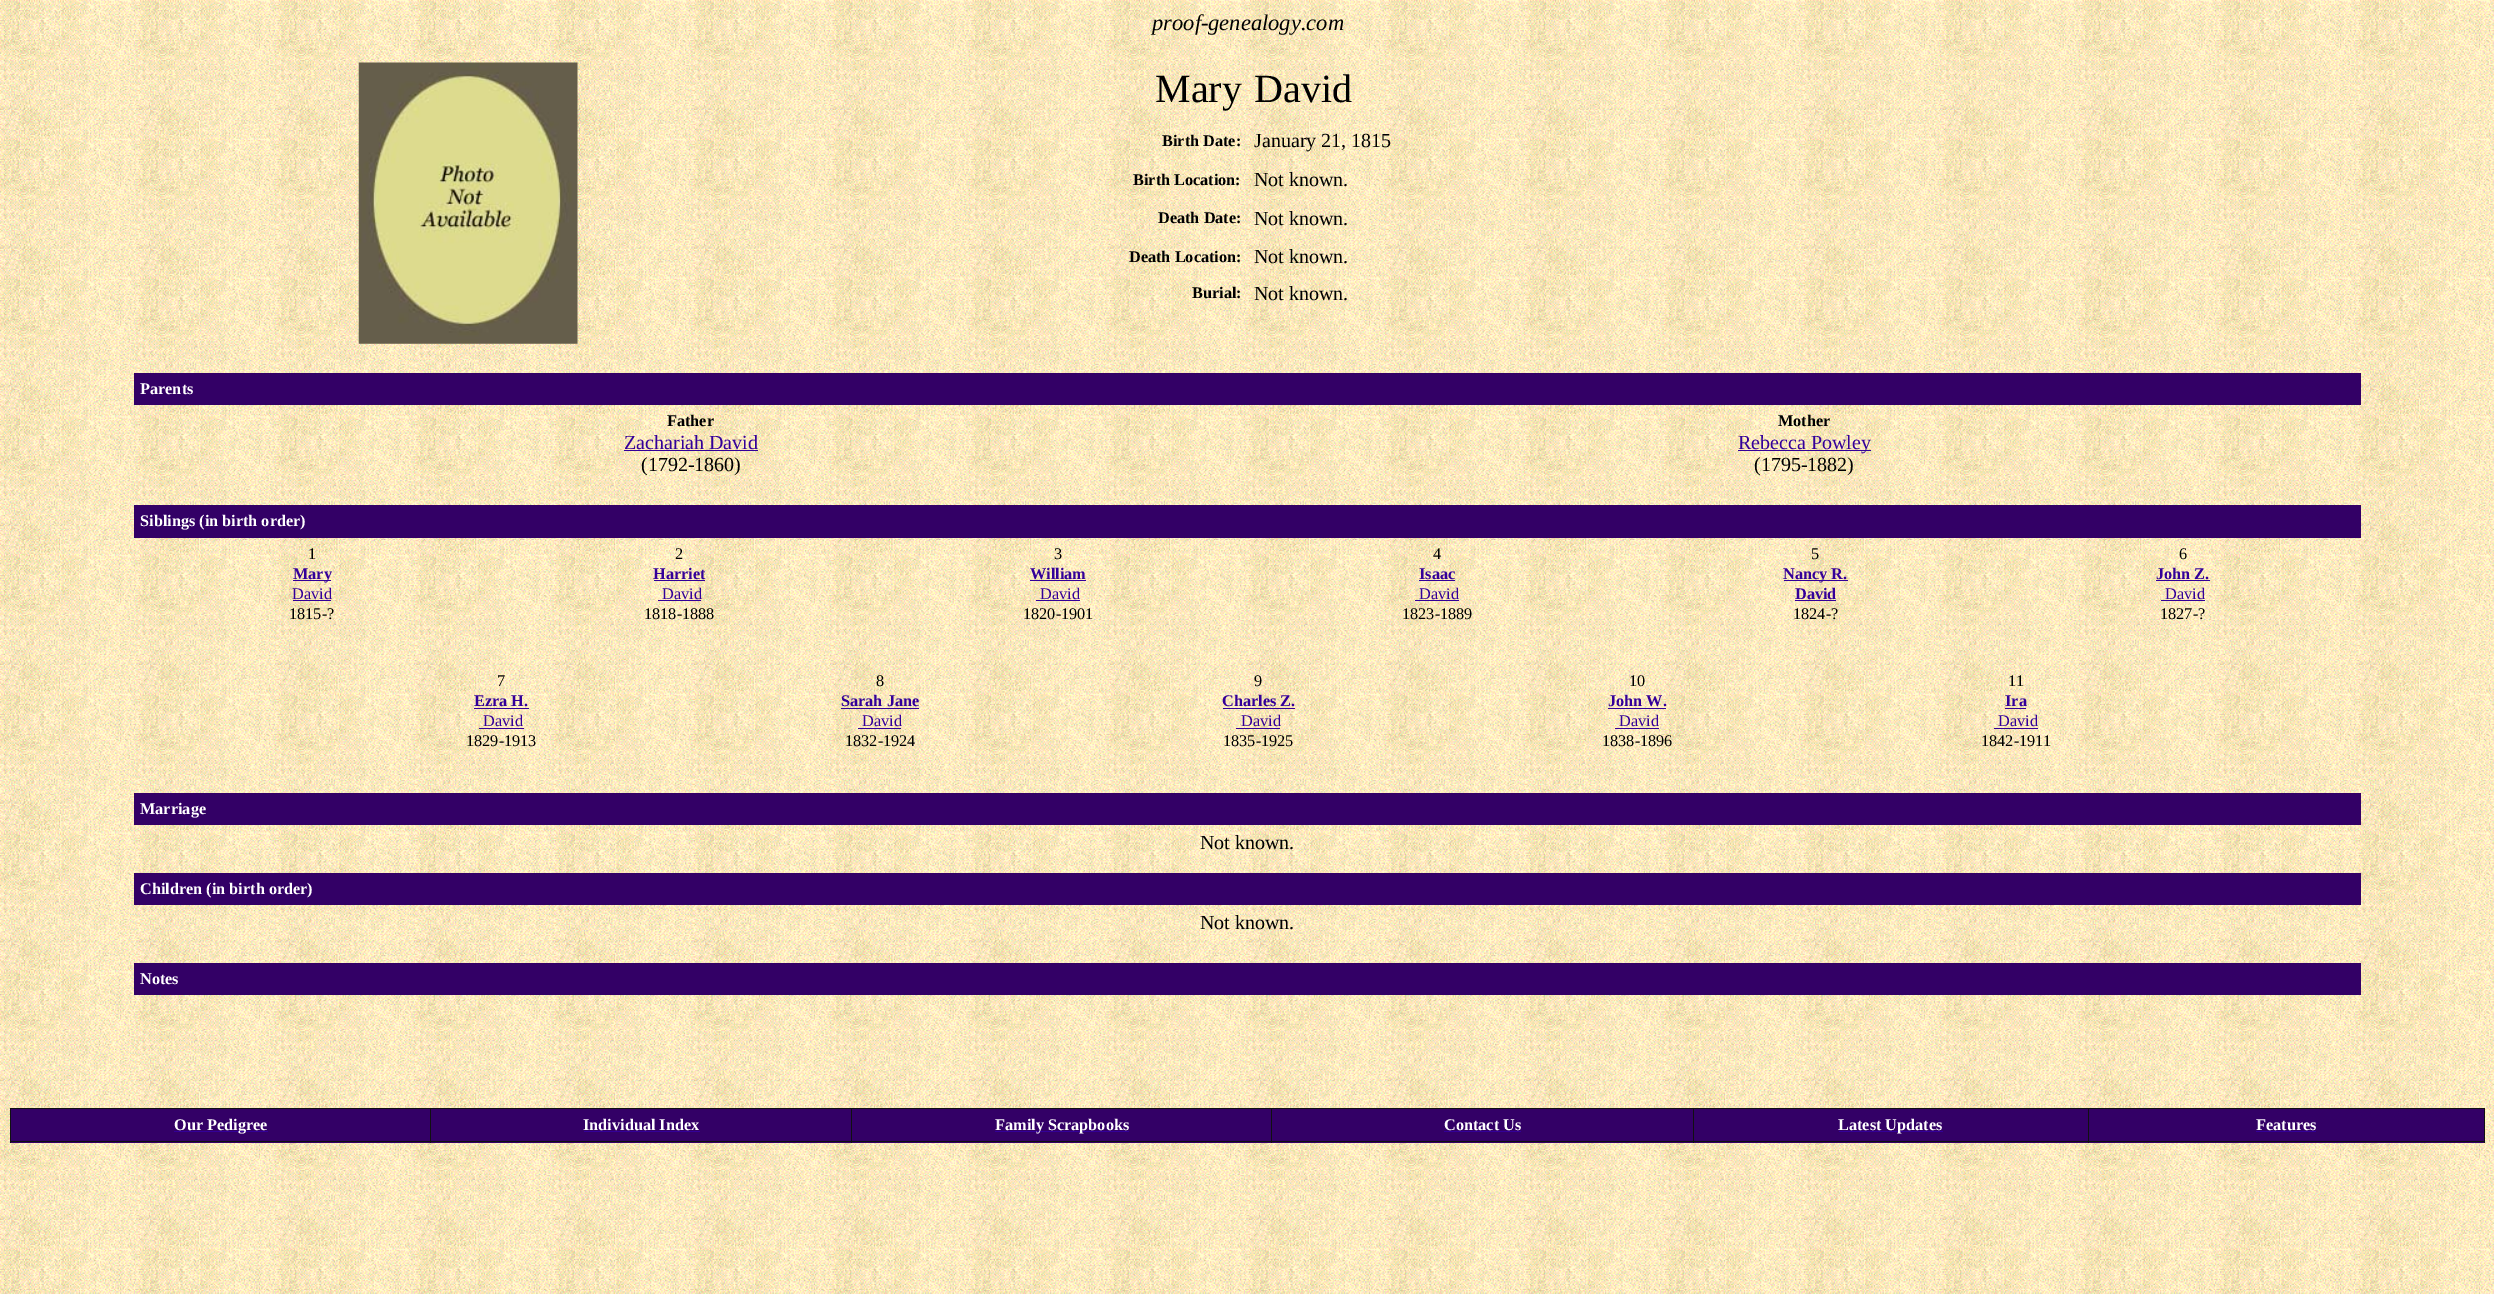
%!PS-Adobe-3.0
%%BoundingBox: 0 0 2494 1294
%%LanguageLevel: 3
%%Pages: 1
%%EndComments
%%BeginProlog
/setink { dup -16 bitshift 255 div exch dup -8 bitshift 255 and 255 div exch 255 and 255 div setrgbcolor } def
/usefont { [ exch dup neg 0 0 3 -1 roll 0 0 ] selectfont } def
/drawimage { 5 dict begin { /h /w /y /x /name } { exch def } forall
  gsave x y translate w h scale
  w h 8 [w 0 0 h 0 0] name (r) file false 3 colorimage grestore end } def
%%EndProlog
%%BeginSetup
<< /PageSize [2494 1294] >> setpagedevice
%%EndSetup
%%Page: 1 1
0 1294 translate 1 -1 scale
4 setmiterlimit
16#FFFFFF setink
0 0 2494 1294 rectfill
(img1.raw) 0 0 2494 1294 drawimage
/LiberationSerif-Italic 22.5 usefont
16#000000 setink
1152 30 moveto (proof-genealogy.com) show
(img2.raw) 358 62 220 282 drawimage
/LiberationSerif-Regular 40 usefont
1155 102 moveto (Mary) show
1254 102 moveto (David) show
/LiberationSerif-Bold 16.25 usefont
1162 146 moveto (Birth Date:) show
/LiberationSerif-Regular 20 usefont
1254 147 moveto (January 21, 1815) show
/LiberationSerif-Bold 16.25 usefont
1133 185 moveto (Birth Location:) show
/LiberationSerif-Regular 20 usefont
1254 186 moveto (Not known.) show
/LiberationSerif-Bold 16.25 usefont
1158 223 moveto (Death Date:) show
/LiberationSerif-Regular 20 usefont
1254 225 moveto (Not known.) show
/LiberationSerif-Bold 16.25 usefont
1129 262 moveto (Death Location:) show
/LiberationSerif-Regular 20 usefont
1254 263 moveto (Not known.) show
/LiberationSerif-Bold 16.25 usefont
1192 298 moveto (Burial:) show
/LiberationSerif-Regular 20 usefont
1254 300 moveto (Not known.) show
16#330066 setink
134 373 2227 32 rectfill
/LiberationSerif-Bold 16.25 usefont
16#FFFFFF setink
140 394 moveto (Parents) show
16#000000 setink
667 426 moveto (Father) show
/LiberationSerif-Regular 20 usefont
16#330099 setink
624 449 moveto (Zachariah David) show
624 450 134 1 rectfill
16#000000 setink
641 471 moveto (\(1792-1860\)) show
/LiberationSerif-Bold 16.25 usefont
1778 426 moveto (Mother) show
16#330099 setink
1738 450 133 1 rectfill
/LiberationSerif-Regular 20 usefont
1738 449 moveto (Rebecca Powley) show
16#000000 setink
1754 471 moveto (\(1795-1882\)) show
16#330066 setink
134 505 2227 33 rectfill
/LiberationSerif-Bold 16.25 usefont
16#FFFFFF setink
140 526 moveto (Siblings \(in birth order\)) show
/LiberationSerif-Regular 16.25 usefont
16#000000 setink
308 559 moveto (1) show
16#330099 setink
293 580 38 1 rectfill
/LiberationSerif-Bold 16.25 usefont
293 579 moveto (Mary) show
/LiberationSerif-Regular 16.25 usefont
292 599 moveto (David) show
293 600 38 1 rectfill
16#000000 setink
289 619 moveto (1815-?) show
675 559 moveto (2) show
/LiberationSerif-Bold 16.25 usefont
16#330099 setink
653 579 moveto (Harriet) show
654 580 51 1 rectfill
/LiberationSerif-Regular 16.25 usefont
662 599 moveto (David) show
658 600 43 1 rectfill
16#000000 setink
644 619 moveto (1818-1888) show
1054 559 moveto (3) show
/LiberationSerif-Bold 16.25 usefont
16#330099 setink
1030 579 moveto (William) show
1030 580 56 1 rectfill
/LiberationSerif-Regular 16.25 usefont
1040 599 moveto (David) show
1036 600 44 1 rectfill
16#000000 setink
1023 619 moveto (1820-1901) show
1433 559 moveto (4) show
/LiberationSerif-Bold 16.25 usefont
16#330099 setink
1419 579 moveto (Isaac) show
1419 580 36 1 rectfill
/LiberationSerif-Regular 16.25 usefont
1419 599 moveto (David) show
1415 600 44 1 rectfill
16#000000 setink
1402 619 moveto (1823-1889) show
1811 559 moveto (5) show
16#330099 setink
1784 580 64 1 rectfill
/LiberationSerif-Bold 16.25 usefont
1783 579 moveto (Nancy R.) show
1795 599 moveto (David) show
1795 600 41 1 rectfill
/LiberationSerif-Regular 16.25 usefont
16#000000 setink
1793 619 moveto (1824-?) show
2179 559 moveto (6) show
/LiberationSerif-Bold 16.25 usefont
16#330099 setink
2156 579 moveto (John Z.) show
2156 580 54 1 rectfill
/LiberationSerif-Regular 16.25 usefont
2165 599 moveto (David) show
2161 600 44 1 rectfill
16#000000 setink
2160 619 moveto (1827-?) show
497 686 moveto (7) show
/LiberationSerif-Bold 16.25 usefont
16#330099 setink
474 706 moveto (Ezra H.) show
474 708 55 1 rectfill
/LiberationSerif-Regular 16.25 usefont
483 726 moveto (David) show
479 728 45 1 rectfill
16#000000 setink
466 746 moveto (1829-1913) show
876 686 moveto (8) show
/LiberationSerif-Bold 16.25 usefont
16#330099 setink
841 706 moveto (Sarah Jane) show
841 708 78 1 rectfill
/LiberationSerif-Regular 16.25 usefont
862 726 moveto (David) show
858 728 43 1 rectfill
16#000000 setink
845 746 moveto (1832-1924) show
1254 686 moveto (9) show
/LiberationSerif-Bold 16.25 usefont
16#330099 setink
1222 706 moveto (Charles Z.) show
1223 708 72 1 rectfill
/LiberationSerif-Regular 16.25 usefont
1241 726 moveto (David) show
1236 728 44 1 rectfill
16#000000 setink
1223 746 moveto (1835-1925) show
1629 686 moveto (10) show
/LiberationSerif-Bold 16.25 usefont
16#330099 setink
1608 706 moveto (John W.) show
1608 708 58 1 rectfill
/LiberationSerif-Regular 16.25 usefont
1619 726 moveto (David) show
1615 728 44 1 rectfill
16#000000 setink
1602 746 moveto (1838-1896) show
2008 686 moveto (11) show
/LiberationSerif-Bold 16.25 usefont
16#330099 setink
2005 706 moveto (Ira) show
2005 708 21 1 rectfill
/LiberationSerif-Regular 16.25 usefont
1998 726 moveto (David) show
1994 728 44 1 rectfill
16#000000 setink
1981 746 moveto (1842-1911) show
16#330066 setink
134 793 2227 32 rectfill
/LiberationSerif-Bold 16.25 usefont
16#FFFFFF setink
140 814 moveto (Marriage) show
/LiberationSerif-Regular 20 usefont
16#000000 setink
1200 849 moveto (Not known.) show
16#330066 setink
134 873 2227 32 rectfill
/LiberationSerif-Bold 16.25 usefont
16#FFFFFF setink
140 894 moveto (Children \(in birth order\)) show
/LiberationSerif-Regular 20 usefont
16#000000 setink
1200 929 moveto (Not known.) show
16#330066 setink
134 963 2227 32 rectfill
/LiberationSerif-Bold 16.25 usefont
16#FFFFFF setink
140 984 moveto (Notes) show
[
    [11 1109 2473 34 16#330066]
    [10 1108 2475 1 16#111111]
    [2484 1108 1 35 16#111111]
    [10 1141 2475 1 16#111111]
    [10 1108 1 35 16#111111]
    [174 1131 94 1 16#330099]
] { aload pop setink rectfill } forall
16#FFFFFF setink
174 1130 moveto (Our Pedigree) show
16#111111 setink
430 1108 1 35 rectfill
16#FFFFFF setink
583 1130 moveto (Individual Index) show
[
    [584 1131 116 1 16#330099]
    [851 1108 1 35 16#111111]
    [995 1131 134 1 16#330099]
] { aload pop setink rectfill } forall
16#FFFFFF setink
995 1130 moveto (Family Scrapbooks) show
16#111111 setink
1271 1108 1 35 rectfill
16#FFFFFF setink
1444 1130 moveto (Contact Us) show
[
    [1444 1131 77 1 16#330099]
    [1693 1108 1 35 16#111111]
    [1839 1131 104 1 16#330099]
] { aload pop setink rectfill } forall
16#FFFFFF setink
1838 1130 moveto (Latest Updates) show
16#111111 setink
2088 1108 1 35 rectfill
16#FFFFFF setink
2256 1130 moveto (Features) show
16#330099 setink
2256 1131 60 1 rectfill
showpage
%%EOF
